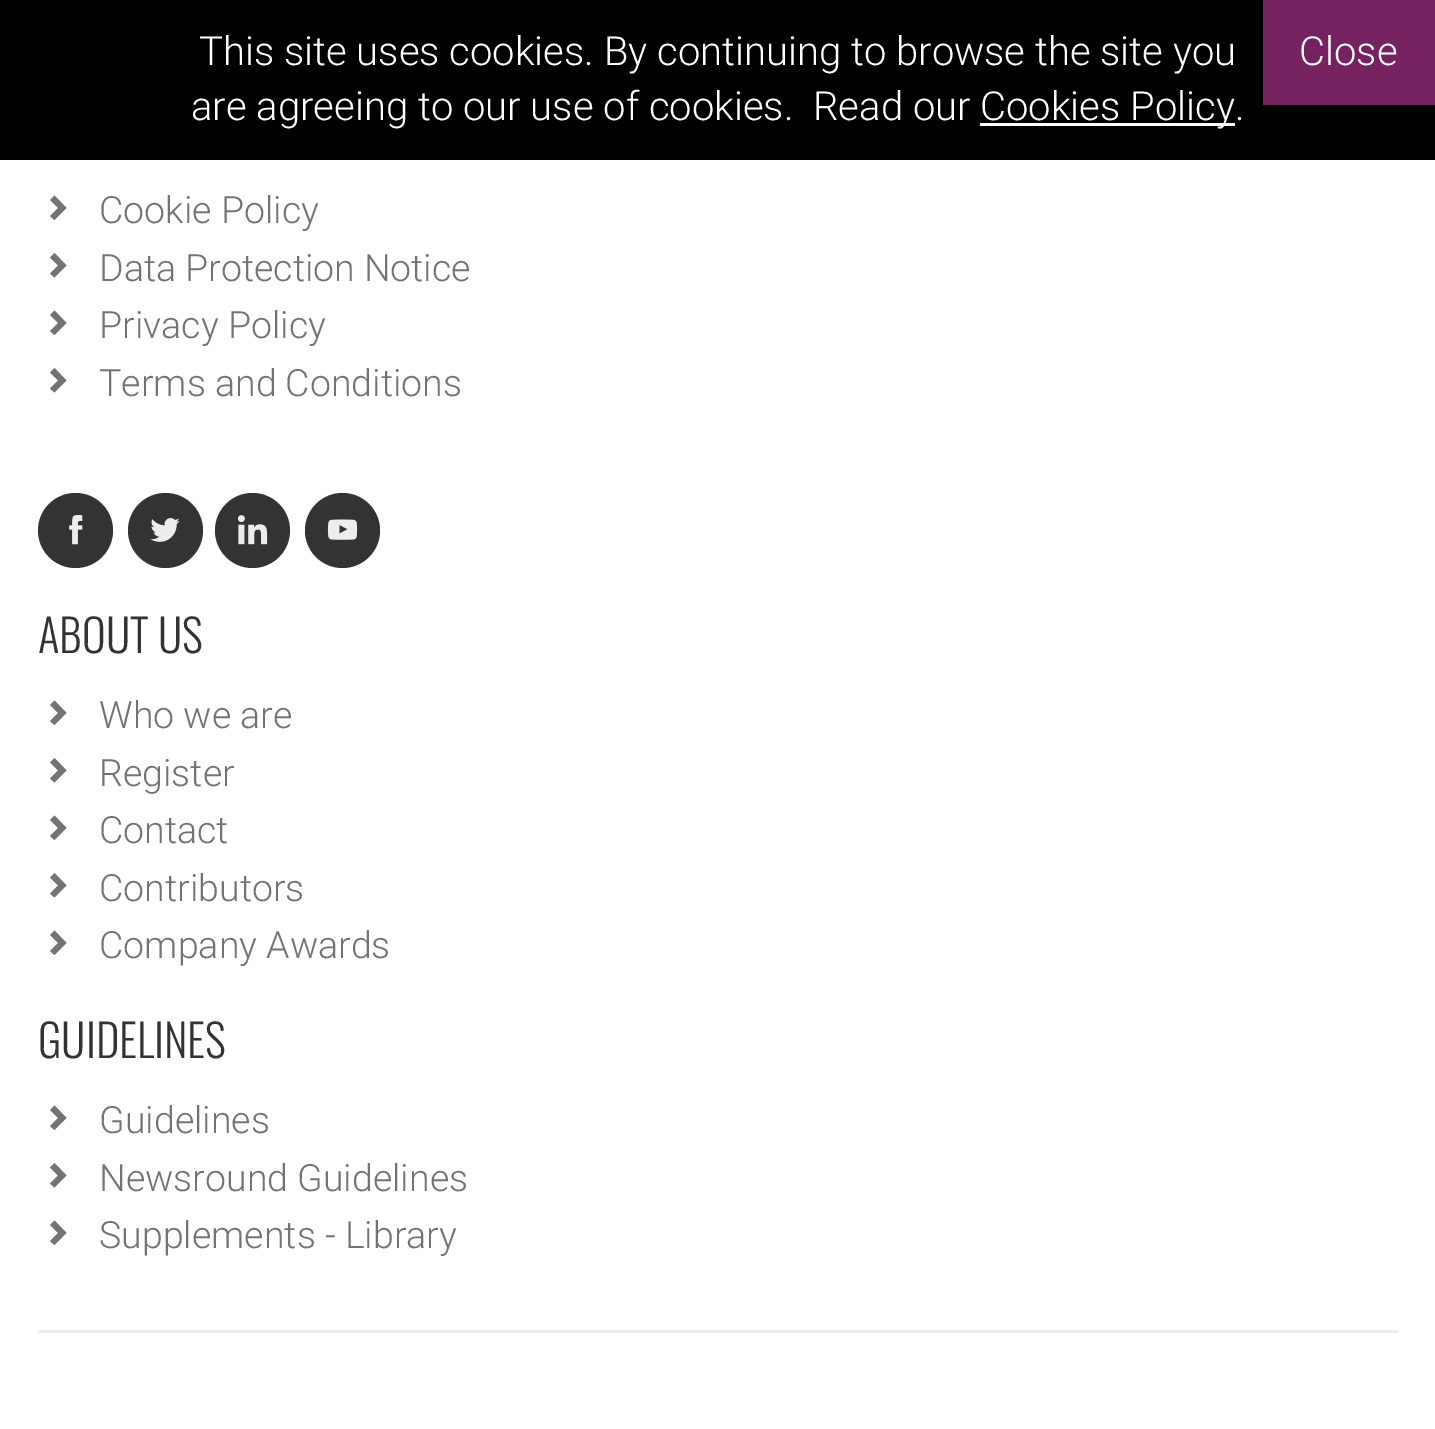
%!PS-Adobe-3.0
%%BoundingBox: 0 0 1435 1429
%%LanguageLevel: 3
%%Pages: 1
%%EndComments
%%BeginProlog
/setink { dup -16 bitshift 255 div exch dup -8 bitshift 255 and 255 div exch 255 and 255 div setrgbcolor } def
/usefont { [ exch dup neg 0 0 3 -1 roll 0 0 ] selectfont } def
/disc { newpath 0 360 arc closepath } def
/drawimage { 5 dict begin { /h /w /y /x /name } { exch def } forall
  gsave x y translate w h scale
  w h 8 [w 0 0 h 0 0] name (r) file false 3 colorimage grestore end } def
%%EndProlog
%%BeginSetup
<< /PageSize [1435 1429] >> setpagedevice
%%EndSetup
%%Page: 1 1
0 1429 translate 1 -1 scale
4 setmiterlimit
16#FFFFFF setink
0 0 1435 1429 rectfill
16#000000 setink
0 0 1435 160 rectfill
/Roboto-Light 40 usefont
16#FFFFFF setink
[
    [(This site uses cookies. By continuing to browse the site you) 199 65]
    [(are agreeing to our use of cookies.) 191 120]
    [(Read our) 813 120]
] { aload pop moveto show } forall
980 123 255 3 rectfill
980 120 moveto (Cookies Policy.) show
16#762260 setink
1263 0 172 105 rectfill
16#FFFFFF setink
1299 65 moveto (Close) show
16#737373 setink
66.5 208 moveto 54.5 195.5 lineto 50 200 lineto 58 208 lineto 50 216 lineto 54.5 220 lineto closepath fill
/Roboto-Light 37.5 usefont
99 223 moveto (Cookie Policy) show
66.5 265.5 moveto 54.5 253 lineto 50 257.5 lineto 58 265.5 lineto 50 273.5 lineto 54.5 277.5 lineto closepath fill
99 281 moveto (Data Protection Notice) show
66.5 323 moveto 54.5 310.5 lineto 50 315 lineto 58 323 lineto 50 331 lineto 54.5 335 lineto closepath fill
99 338 moveto (Privacy Policy) show
66.5 380.5 moveto 54.5 368 lineto 50 372.5 lineto 58 380.5 lineto 50 388.5 lineto 54.5 392.5 lineto closepath fill
99 396 moveto (Terms and Conditions) show
16#333333 setink
75.5 530.5 37.5 disc fill
(img1.raw) 69 515 14 30 drawimage
165.5 530.5 37.5 disc fill
(img2.raw) 150 518 30 24 drawimage
252.5 530.5 37.5 disc fill
(img3.raw) 237 515 31 30 drawimage
342.5 530.5 37.5 disc fill
(img4.raw) 327 519 31 21 drawimage
/Oswald-Light 45 usefont
38 653 moveto (ABOUT US) show
16#737373 setink
66.5 713 moveto 54.5 700.5 lineto 50 705 lineto 58 713 lineto 50 721 lineto 54.5 725 lineto closepath fill
/Roboto-Light 37.5 usefont
99 728 moveto (Who we are) show
66.5 770.5 moveto 54.5 758 lineto 50 762.5 lineto 58 770.5 lineto 50 778.5 lineto 54.5 782.5 lineto closepath fill
99 786 moveto (Register) show
66.5 828 moveto 54.5 815.5 lineto 50 820 lineto 58 828 lineto 50 836 lineto 54.5 840 lineto closepath fill
99 843 moveto (Contact) show
66.5 885.5 moveto 54.5 873 lineto 50 877.5 lineto 58 885.5 lineto 50 893.5 lineto 54.5 897.5 lineto closepath fill
99 901 moveto (Contributors) show
66.5 943 moveto 54.5 930.5 lineto 50 935 lineto 58 943 lineto 50 951 lineto 54.5 955 lineto closepath fill
99 958 moveto (Company Awards) show
/Oswald-Light 45 usefont
16#333333 setink
38 1058 moveto (GUIDELINES) show
16#737373 setink
66.5 1118 moveto 54.5 1105.5 lineto 50 1110 lineto 58 1118 lineto 50 1126 lineto 54.5 1130 lineto closepath fill
/Roboto-Light 37.5 usefont
99 1133 moveto (Guidelines) show
66.5 1175.5 moveto 54.5 1163 lineto 50 1167.5 lineto 58 1175.5 lineto 50 1183.5 lineto 54.5 1187.5 lineto closepath fill
99 1191 moveto (Newsround Guidelines) show
66.5 1233 moveto 54.5 1220.5 lineto 50 1225 lineto 58 1233 lineto 50 1241 lineto 54.5 1245 lineto closepath fill
99 1248 moveto (Supplements - Library) show
16#EDEDED setink
38 1330 1360 3 rectfill
showpage
%%EOF
